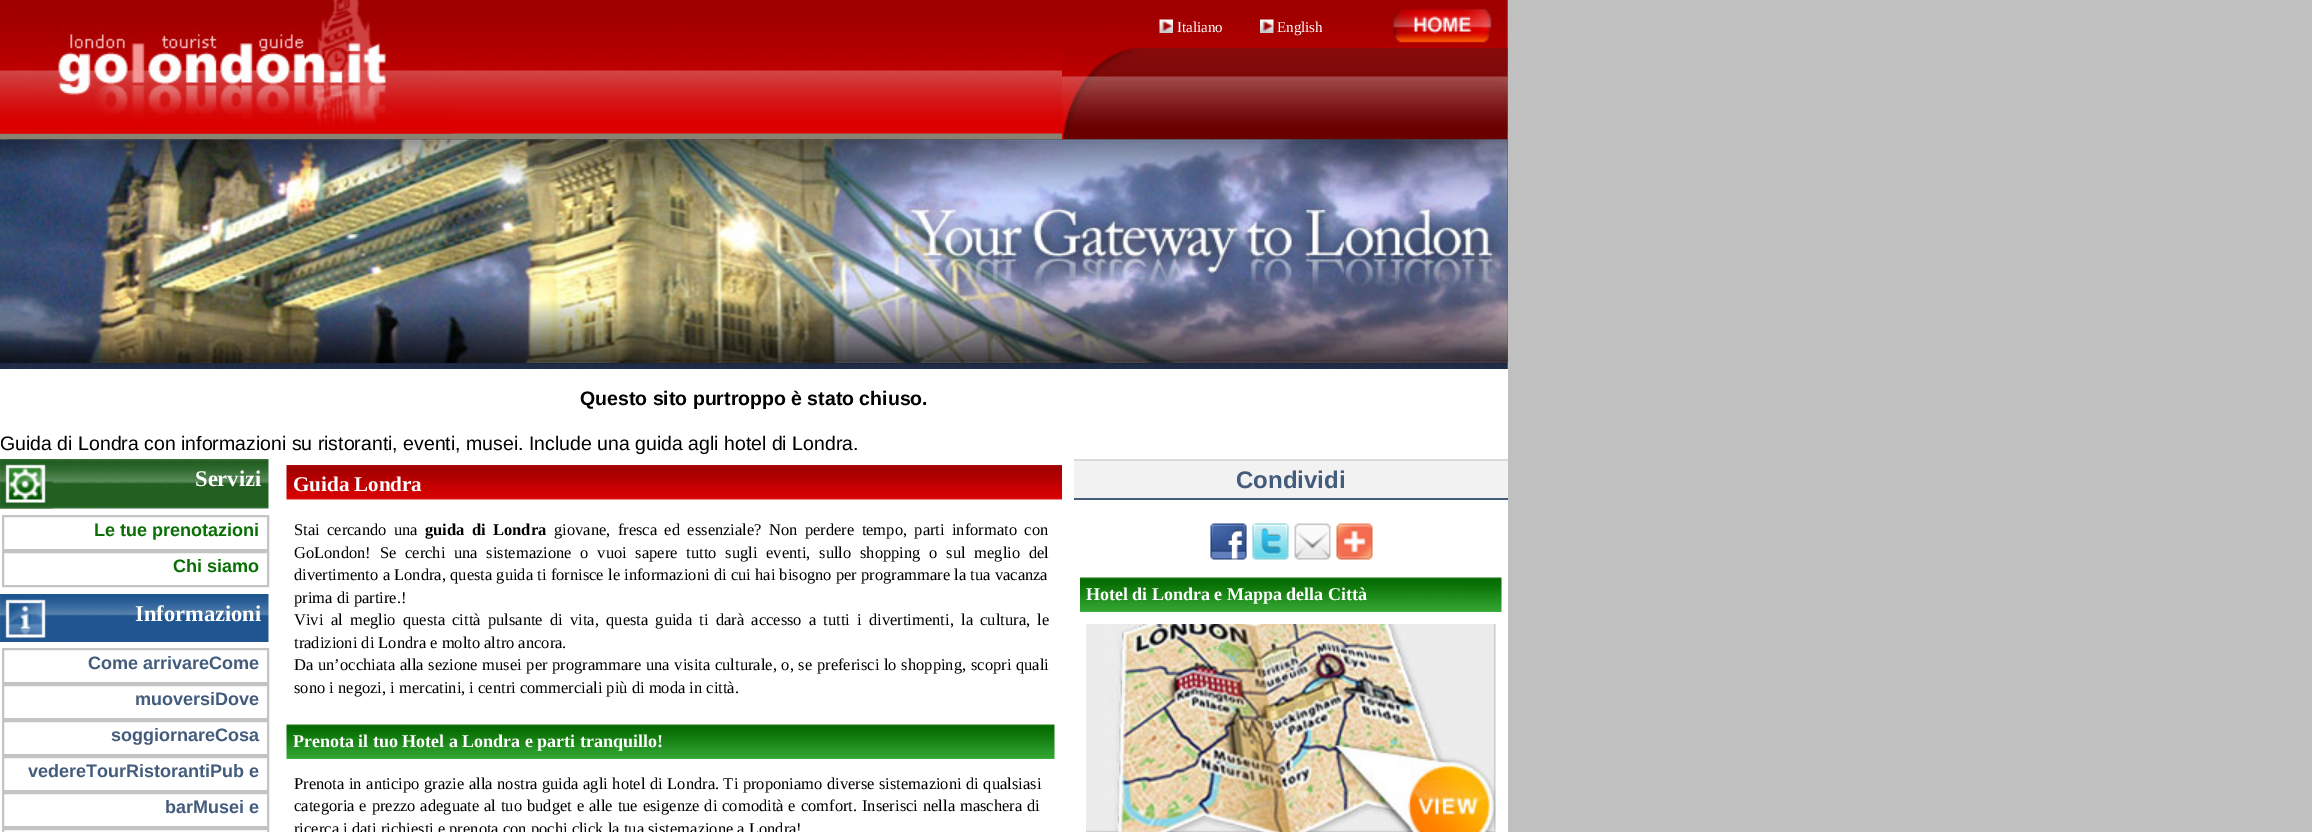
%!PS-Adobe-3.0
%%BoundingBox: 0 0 2312 832
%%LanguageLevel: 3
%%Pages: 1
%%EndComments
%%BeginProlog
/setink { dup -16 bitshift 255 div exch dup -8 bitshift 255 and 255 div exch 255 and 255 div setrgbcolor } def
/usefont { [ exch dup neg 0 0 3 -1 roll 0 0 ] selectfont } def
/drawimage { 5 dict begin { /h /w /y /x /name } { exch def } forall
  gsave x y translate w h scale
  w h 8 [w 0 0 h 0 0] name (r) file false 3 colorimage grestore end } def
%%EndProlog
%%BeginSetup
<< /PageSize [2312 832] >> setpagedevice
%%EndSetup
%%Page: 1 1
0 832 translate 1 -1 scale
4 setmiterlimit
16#C0C0C0 setink
0 0 2312 832 rectfill
16#8B8371 setink
0 0 1508 369 rectfill
(img1.raw) 0 0 1508 134 drawimage
(img2.raw) 0 0 453 134 drawimage
(img3.raw) 1159 19 14 14 drawimage
/LiberationSerif-Regular 15 usefont
16#FFFFFF setink
1177 32 moveto (Italiano) show
(img4.raw) 1260 19 14 14 drawimage
1277 32 moveto (English) show
(img5.raw) 1390 5 102 40 drawimage
(img6.raw) 1062 48 446 92 drawimage
(img7.raw) 0 139 1508 230 drawimage
(img8.raw) 7 139 1501 224 drawimage
0 369 1508 90 rectfill
/LiberationSans-Bold 19.5 usefont
16#000000 setink
580 405 moveto (Questo sito purtroppo è stato chiuso.) show
/LiberationSans-Regular 19.5 usefont
0 450 moveto (Guida di Londra con informazioni su ristoranti, eventi, musei. Include una guida agli hotel di Londra.) show
16#FFFFFF setink
0 459 1508 373 rectfill
(img9.raw) 0 459 269 50 drawimage
(img10.raw) 0 459 53 50 drawimage
/LiberationSerif-Bold 22.5 usefont
195 486 moveto (Servizi) show
16#C4C4C4 setink
2 setlinewidth
3 516 265 34 rectstroke
/LiberationSans-Bold 18 usefont
16#086F04 setink
94 536 moveto (Le tue prenotazioni) show
16#C4C4C4 setink
3 552 265 34 rectstroke
16#086F04 setink
173 572 moveto (Chi siamo) show
(img11.raw) 52 594 217 48 drawimage
(img12.raw) 0 594 52 48 drawimage
/LiberationSerif-Bold 22.5 usefont
16#FFFFFF setink
135 621 moveto (Informazioni) show
16#C4C4C4 setink
3 649 265 34 rectstroke
/LiberationSans-Bold 18 usefont
16#435C7C setink
88 669 moveto (Come arrivareCome) show
16#C4C4C4 setink
3 685 265 34 rectstroke
16#435C7C setink
135 705 moveto (muoversiDove) show
16#C4C4C4 setink
3 721 265 34 rectstroke
16#435C7C setink
111 741 moveto (soggiornareCosa) show
16#C4C4C4 setink
3 757 265 34 rectstroke
16#435C7C setink
28 777 moveto (vedereTourRistorantiPub e) show
16#C4C4C4 setink
3 793 265 34 rectstroke
16#435C7C setink
165 813 moveto (barMusei e) show
16#C4C4C4 setink
3 829 265 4 rectstroke
(img13.raw) 286 465 776 35 drawimage
/LiberationSerif-Bold 21 usefont
16#FFFFFF setink
293 491 moveto (Guida Londra) show
/LiberationSerif-Regular 16.5 usefont
16#000000 setink
294 535 moveto 3.25 0 32 (Stai cercando una) widthshow
/LiberationSerif-Bold 16.5 usefont
425 535 moveto 3.25 0 32 (guida di Londra) widthshow
/LiberationSerif-Regular 16.5 usefont
554 535 moveto 3.25 0 32 (giovane, fresca ed essenziale? Non perdere tempo, parti informato con) widthshow
294 558 moveto 4.6 0 32 (GoLondon! Se cerchi una sistemazione o vuoi sapere tutto sugli eventi, sullo shopping o sul meglio del) widthshow
294 580 moveto 0.1 0 32 (divertimento a Londra, questa guida ti fornisce le informazioni di cui hai bisogno per programmare la tua vacanza) widthshow
294 603 moveto (prima di partire.!) show
294 625 moveto 3.1 0 32 (Vivi al meglio questa città pulsante di vita, questa guida ti darà accesso a tutti i divertimenti, la cultura, le) widthshow
294 648 moveto (tradizioni di Londra e molto altro ancora.) show
294 670 moveto 0.6 0 32 (Da un’occhiata alla sezione musei per programmare una visita culturale, o, se preferisci lo shopping, scopri quali) widthshow
294 693 moveto (sono i negozi, i mercatini, i centri commerciali più di moda in città.) show
(img14.raw) 286 724 769 35 drawimage
/LiberationSerif-Bold 18 usefont
16#FFFFFF setink
293 747 moveto (Prenota il tuo Hotel a Londra e parti tranquillo!) show
/LiberationSerif-Regular 16.5 usefont
16#000000 setink
294 789 moveto 0.4 0 32 (Prenota in anticipo grazie alla nostra guida agli hotel di Londra. Ti proponiamo diverse sistemazioni di qualsiasi) widthshow
294 811 moveto 0.8 0 32 (categoria e prezzo adeguate al tuo budget e alle tue esigenze di comodità e comfort. Inserisci nella maschera di) widthshow
294 834 moveto (ricerca i dati richiesti e prenota con pochi click la tua sistemazione a Londra!) show
[
    [1074 461 434 37 16#F2F2F2]
    [1074 459 434 2 16#DBDBDB]
    [1074 498 434 2 16#435C7C]
] { aload pop setink rectfill } forall
/LiberationSans-Bold 24 usefont
1236 488 moveto (Condividi) show
(img15.raw) 1210 523 37 37 drawimage
(img16.raw) 1252 523 37 37 drawimage
(img17.raw) 1294 523 37 37 drawimage
(img18.raw) 1336 523 37 37 drawimage
(img19.raw) 1080 577 422 35 drawimage
/LiberationSerif-Bold 18 usefont
16#FFFFFF setink
1086 600 moveto (Hotel di Londra e Mappa della Città) show
(img20.raw) 1086 624 410 208 drawimage
showpage
%%EOF
